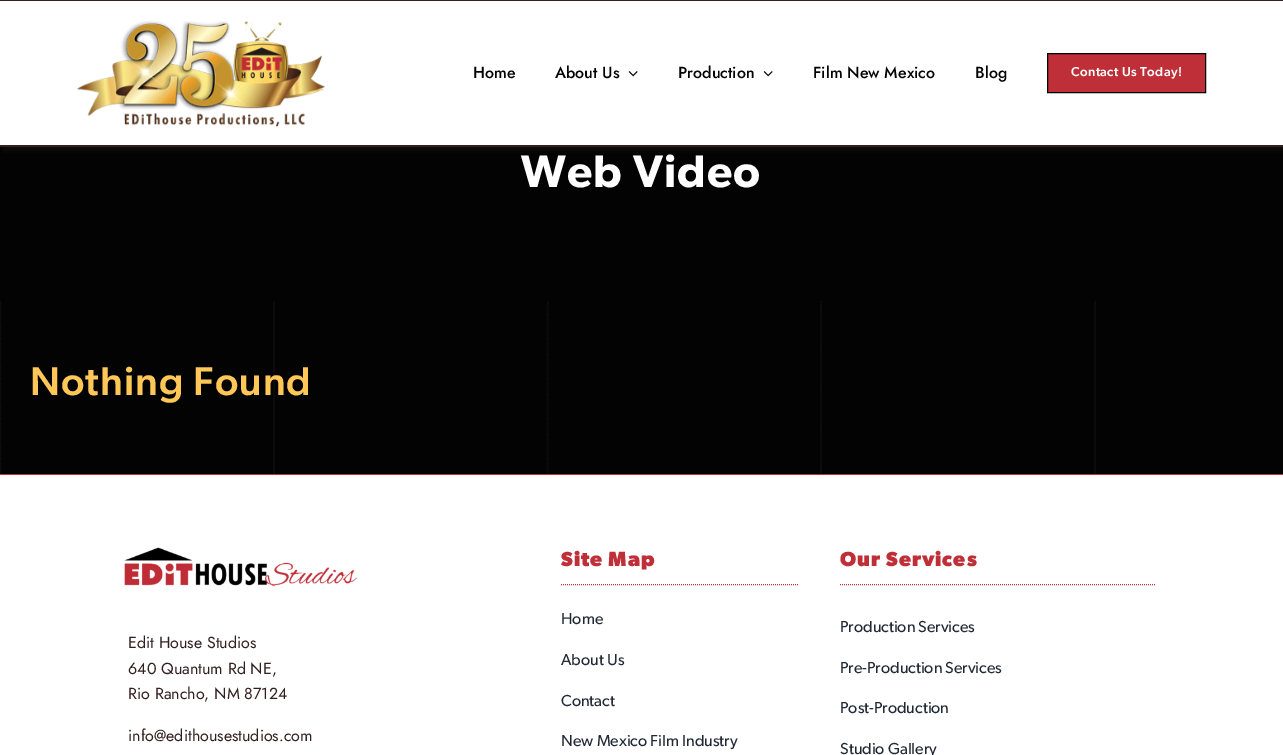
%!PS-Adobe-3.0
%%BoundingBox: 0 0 1283 755
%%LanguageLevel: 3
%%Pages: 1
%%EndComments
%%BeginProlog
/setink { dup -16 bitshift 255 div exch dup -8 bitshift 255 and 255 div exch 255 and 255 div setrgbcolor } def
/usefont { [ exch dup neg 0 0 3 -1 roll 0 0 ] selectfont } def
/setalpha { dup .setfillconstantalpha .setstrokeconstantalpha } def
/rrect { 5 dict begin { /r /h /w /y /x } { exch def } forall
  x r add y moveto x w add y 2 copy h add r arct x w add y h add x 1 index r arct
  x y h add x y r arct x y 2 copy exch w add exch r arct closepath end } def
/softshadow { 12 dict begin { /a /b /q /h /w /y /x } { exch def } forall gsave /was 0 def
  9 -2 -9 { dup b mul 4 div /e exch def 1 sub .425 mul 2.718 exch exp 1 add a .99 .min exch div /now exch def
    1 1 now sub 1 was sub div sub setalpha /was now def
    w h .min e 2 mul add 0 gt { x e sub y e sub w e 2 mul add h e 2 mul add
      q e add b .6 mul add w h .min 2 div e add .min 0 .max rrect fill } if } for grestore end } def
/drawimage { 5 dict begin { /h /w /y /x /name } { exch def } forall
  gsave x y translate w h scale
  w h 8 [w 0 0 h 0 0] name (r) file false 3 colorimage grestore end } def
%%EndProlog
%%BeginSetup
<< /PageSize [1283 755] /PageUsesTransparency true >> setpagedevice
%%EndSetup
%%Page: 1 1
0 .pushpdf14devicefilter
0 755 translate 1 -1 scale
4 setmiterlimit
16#030303 setink
0 0 1283 755 rectfill
16#321F20 setink
4 4 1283 147 0 2.5 0.3 softshadow
[
    [0 1 1283 144 16#FFFFFF]
    [0 0 1283 1 16#321F20]
    [0 145 1283 2 16#321F20]
] { aload pop setink rectfill } forall
(img1.raw) 77 21 248 107 drawimage
/Jost-Medium 16 usefont
16#030303 setink
473 78 moveto (Home) show
555 78 moveto (About Us) show
(img2.raw) 628 71 10 6 drawimage
678 78 moveto (Production) show
(img2.raw) 763 71 10 6 drawimage
813 78 moveto (Film New Mexico) show
975 78 moveto (Blog) show
16#BF2F38 setink
1047.5 53.5 moveto 1205.5 53.5 lineto 1205.5 92.5 lineto 1047.5 92.5 lineto closepath gsave fill grestore
16#030303 setink
stroke
/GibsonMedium-Medium 13 usefont
16#FFFFFF setink
1071 76 moveto 0.4 0 (Contact Us Today!) ashow
/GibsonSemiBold-SemiBold 45.5 usefont
521 187 moveto 1 0 (Web Video) ashow
(img3.raw) 0 301 1096 173 drawimage
/GibsonMedium-Medium 40.25 usefont
16#FFC758 setink
30 395 moveto 1 0 (Nothing Found) ashow
16#FFFFFF setink
0 475 1283 280 rectfill
16#BF2F38 setink
0 474 1283 1 rectfill
(img4.raw) 124 547 233 40 drawimage
/Jost-Regular 16 usefont
16#321F20 setink
[
    [(Edit House Studios) 128 648]
    [(640 Quantum Rd NE,) 128 674]
    [(Rio Rancho, NM 87124) 128 699]
    [(info@edithousestudios.com) 128 741]
] { aload pop moveto show } forall
16#BF2F38 setink
[1 1] 0 setdash
561 584.5 moveto 799 584.5 lineto stroke
/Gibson-Bold 20.5 usefont
561 566 moveto 1 0 (Site Map) ashow
/Gibson-Regular 16 usefont
16#212934 setink
[
    [(Home) 561 624]
    [(About Us) 561 665]
    [(Contact) 561 706]
    [(New Mexico Film Industry) 561 746]
] { aload pop moveto show } forall
16#BF2F38 setink
840 584.5 moveto 1155 584.5 lineto stroke
/Gibson-Bold 20.5 usefont
840 566 moveto 1 0 (Our Services) ashow
/Gibson-Regular 16 usefont
16#212934 setink
[
    [(Production Services) 840 632]
    [(Pre-Production Services) 840 673]
    [(Post-Production) 840 713]
    [(Studio Gallery) 840 754]
] { aload pop moveto show } forall
.poppdf14devicefilter showpage
%%EOF
